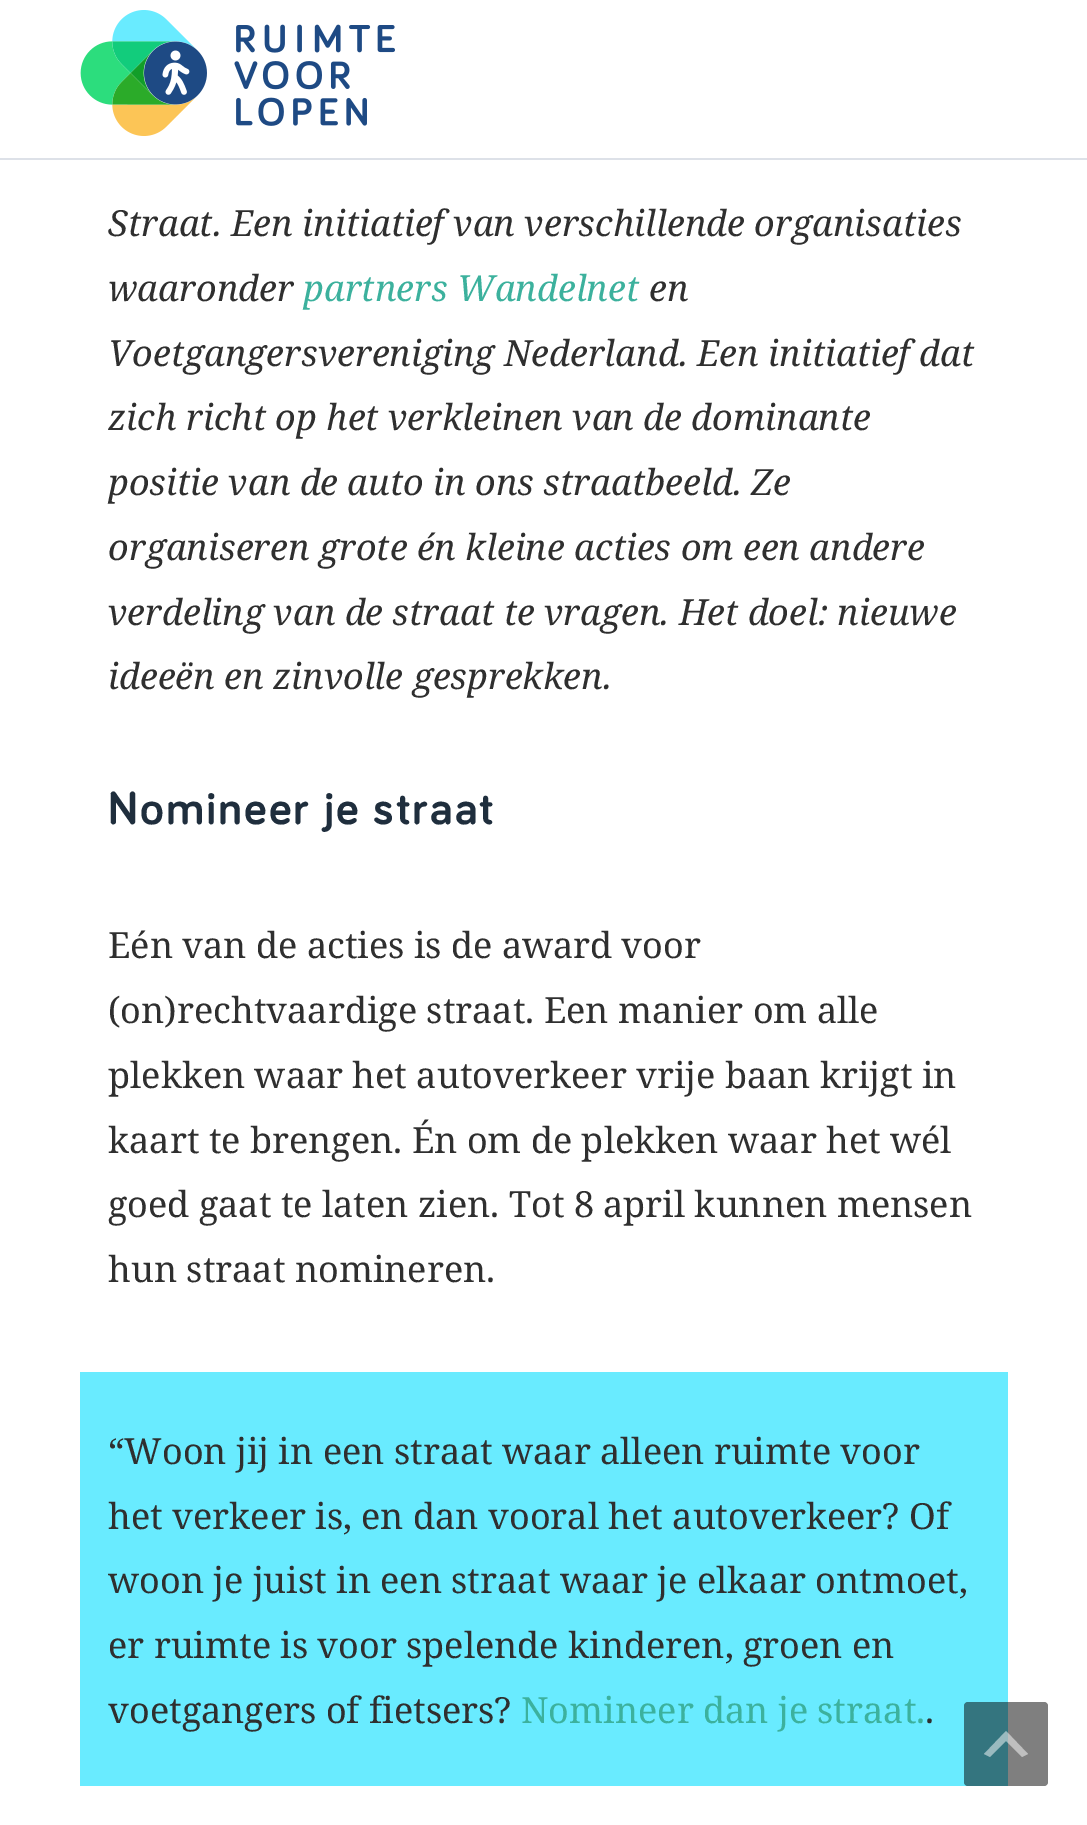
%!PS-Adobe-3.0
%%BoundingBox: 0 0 1087 1825
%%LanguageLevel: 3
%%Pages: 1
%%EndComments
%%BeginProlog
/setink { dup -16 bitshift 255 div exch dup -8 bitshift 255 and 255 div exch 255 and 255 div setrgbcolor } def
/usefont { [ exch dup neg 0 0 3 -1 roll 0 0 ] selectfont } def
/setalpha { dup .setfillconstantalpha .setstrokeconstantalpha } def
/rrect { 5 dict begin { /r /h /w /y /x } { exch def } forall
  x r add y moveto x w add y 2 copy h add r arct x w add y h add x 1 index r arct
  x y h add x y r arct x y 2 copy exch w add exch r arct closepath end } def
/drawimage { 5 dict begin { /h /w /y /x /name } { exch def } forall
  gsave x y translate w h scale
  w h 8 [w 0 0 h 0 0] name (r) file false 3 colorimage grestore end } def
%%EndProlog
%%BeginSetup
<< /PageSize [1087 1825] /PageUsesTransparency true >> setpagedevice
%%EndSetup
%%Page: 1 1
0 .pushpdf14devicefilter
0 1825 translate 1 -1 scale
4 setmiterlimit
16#FFFFFF setink
0 0 1087 1825 rectfill
16#DDE1E8 setink
0 158 1087 2 rectfill
(img1.raw) 80 10 315 126 drawimage
/NotoSerif-Italic 36 usefont
16#2F2F2F setink
108 236 moveto (Straat. Een initiatief van verschillende organisaties) show
108 301 moveto (waaronder) show
16#3CB19D setink
303 301 moveto (partners Wandelnet) show
16#2F2F2F setink
[
    [(en) 649 301]
    [(Voetgangersvereniging Nederland. Een initiatief dat) 108 366]
    [(zich richt op het verkleinen van de dominante) 108 430]
    [(positie van de auto in ons straatbeeld. Ze) 108 495]
    [(organiseren grote én kleine acties om een andere) 108 560]
    [(verdeling van de straat te vragen. Het doel: nieuwe) 108 625]
    [(ideeën en zinvolle gesprekken.) 108 689]
] { aload pop moveto show } forall
/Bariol-Bold 48 usefont
16#1F2E3D setink
108 824 moveto 2 0 (Nomineer je straat) ashow
/NotoSerif-Regular 36 usefont
16#2F2F2F setink
[
    [(Eén van de acties is de award voor) 108 958]
    [(\(on\)rechtvaardige straat. Een manier om alle) 108 1023]
    [(plekken waar het autoverkeer vrije baan krijgt in) 108 1088]
    [(kaart te brengen. Én om de plekken waar het wél) 108 1153]
    [(goed gaat te laten zien. Tot 8 april kunnen mensen) 108 1217]
    [(hun straat nomineren.) 108 1282]
] { aload pop moveto show } forall
16#69EBFF setink
80 1372 928 414 rectfill
16#2F2F2F setink
[
    [(“Woon jij in een straat waar alleen ruimte voor) 108 1464]
    [(het verkeer is, en dan vooral het autoverkeer? Of) 108 1529]
    [(woon je juist in een straat waar je elkaar ontmoet,) 108 1593]
    [(er ruimte is voor spelende kinderen, groen en) 108 1658]
    [(voetgangers of fietsers?) 108 1723]
] { aload pop moveto show } forall
16#3CB19D setink
521 1723 moveto (Nomineer dan je straat.) show
16#2F2F2F setink
925 1723 moveto (.) show
0.5 setalpha
16#000000 setink
964 1702 84 84 4 rrect fill
16#FFFFFF setink
1022 1757 moveto 1006 1741 lineto 990 1757 lineto 984 1754 lineto 1006 1731 lineto 1028 1754 lineto closepath fill
.poppdf14devicefilter showpage
%%EOF
